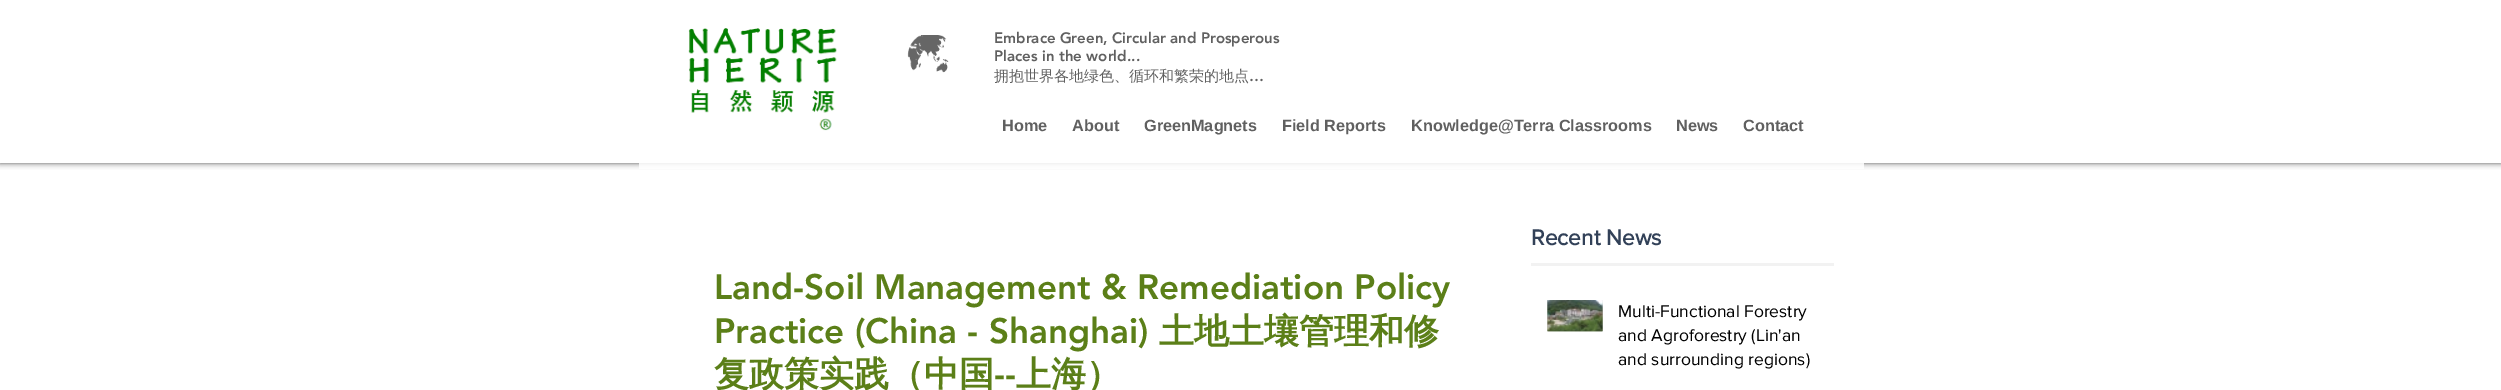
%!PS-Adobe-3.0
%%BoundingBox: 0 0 2501 390
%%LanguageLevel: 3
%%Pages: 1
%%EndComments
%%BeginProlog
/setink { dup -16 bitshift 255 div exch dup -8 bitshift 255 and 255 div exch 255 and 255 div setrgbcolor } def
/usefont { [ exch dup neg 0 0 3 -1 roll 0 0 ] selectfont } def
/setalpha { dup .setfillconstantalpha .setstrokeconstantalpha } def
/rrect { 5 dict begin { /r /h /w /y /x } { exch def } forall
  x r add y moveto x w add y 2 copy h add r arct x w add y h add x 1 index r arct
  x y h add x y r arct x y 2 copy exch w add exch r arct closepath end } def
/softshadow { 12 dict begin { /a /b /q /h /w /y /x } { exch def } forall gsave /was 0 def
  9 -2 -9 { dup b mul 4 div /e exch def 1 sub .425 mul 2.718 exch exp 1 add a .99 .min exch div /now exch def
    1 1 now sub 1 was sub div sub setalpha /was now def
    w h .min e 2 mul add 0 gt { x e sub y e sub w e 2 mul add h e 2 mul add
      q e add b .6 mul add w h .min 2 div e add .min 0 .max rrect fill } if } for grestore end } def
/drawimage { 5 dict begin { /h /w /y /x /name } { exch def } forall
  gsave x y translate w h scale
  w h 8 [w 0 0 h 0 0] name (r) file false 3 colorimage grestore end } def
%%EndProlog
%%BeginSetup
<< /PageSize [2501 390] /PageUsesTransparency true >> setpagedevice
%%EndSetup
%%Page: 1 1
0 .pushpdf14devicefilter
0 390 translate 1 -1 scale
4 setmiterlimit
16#FFFFFF setink
0 0 2501 390 rectfill
16#000000 setink
0 0 2501 163 0 3 0.7 softshadow
16#FFFFFF setink
0 0 2501 163 rectfill
(img1.raw) 688 28 149 103 drawimage
(img2.raw) 907 35 42 38 drawimage
/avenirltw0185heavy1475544-Black 15 usefont
16#606060 setink
994 43 moveto (Embrace Green, Circular and Prosperous) show
994 61 moveto (Places in the world...) show
/WenQuanYiZenHei-Medium 15 usefont
994 81 moveto (拥抱世界各地绿色、循环和繁荣的地点) show
/avenirltw0185heavy1475544-Black 15 usefont
1249 81 moveto (…) show
/LiberationSans-Bold 16.25 usefont
[
    [(Home) 1002 131]
    [(About) 1072 131]
    [(GreenMagnets) 1144 131]
    [(Field Reports) 1282 131]
    [(Knowledge@Terra Classrooms) 1411 131]
    [(News) 1676 131]
    [(Contact) 1743 131]
] { aload pop moveto show } forall
0.85 setalpha
16#FFFFFF setink
639 163 1225 6 rectfill
/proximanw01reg-Bold 22.5 usefont
1 setalpha
16#324158 setink
1531 245 moveto (Recent News) show
16#F2F2F2 setink
1531 263 303 3 rectfill
/avenirltw0185heavy1475544-Black 35 usefont
16#5B7F18 setink
714 299 moveto (Land-Soil Management & Remediation Policy) show
714 343 moveto (Practice \(China - Shanghai\)) show
/WenQuanYiZenHei-Bold 35 usefont
1159 343 moveto (土地土壤管理和修) show
714 386 moveto (复政策实践（中国) show
/avenirltw0185heavy1475544-Black 35 usefont
994 386 moveto (--) show
/WenQuanYiZenHei-Bold 35 usefont
1016 386 moveto (上海）) show
(img3.raw) 1547 300 56 32 drawimage
(img4.raw) 1547 300 56 32 drawimage
/proximanw01reg-Regular 17.5 usefont
16#000000 setink
[
    [(Multi-Functional Forestry) 1618 317]
    [(and Agroforestry \(Lin'an) 1618 341]
    [(and surrounding regions\)) 1618 365]
] { aload pop moveto show } forall
.poppdf14devicefilter showpage
%%EOF
